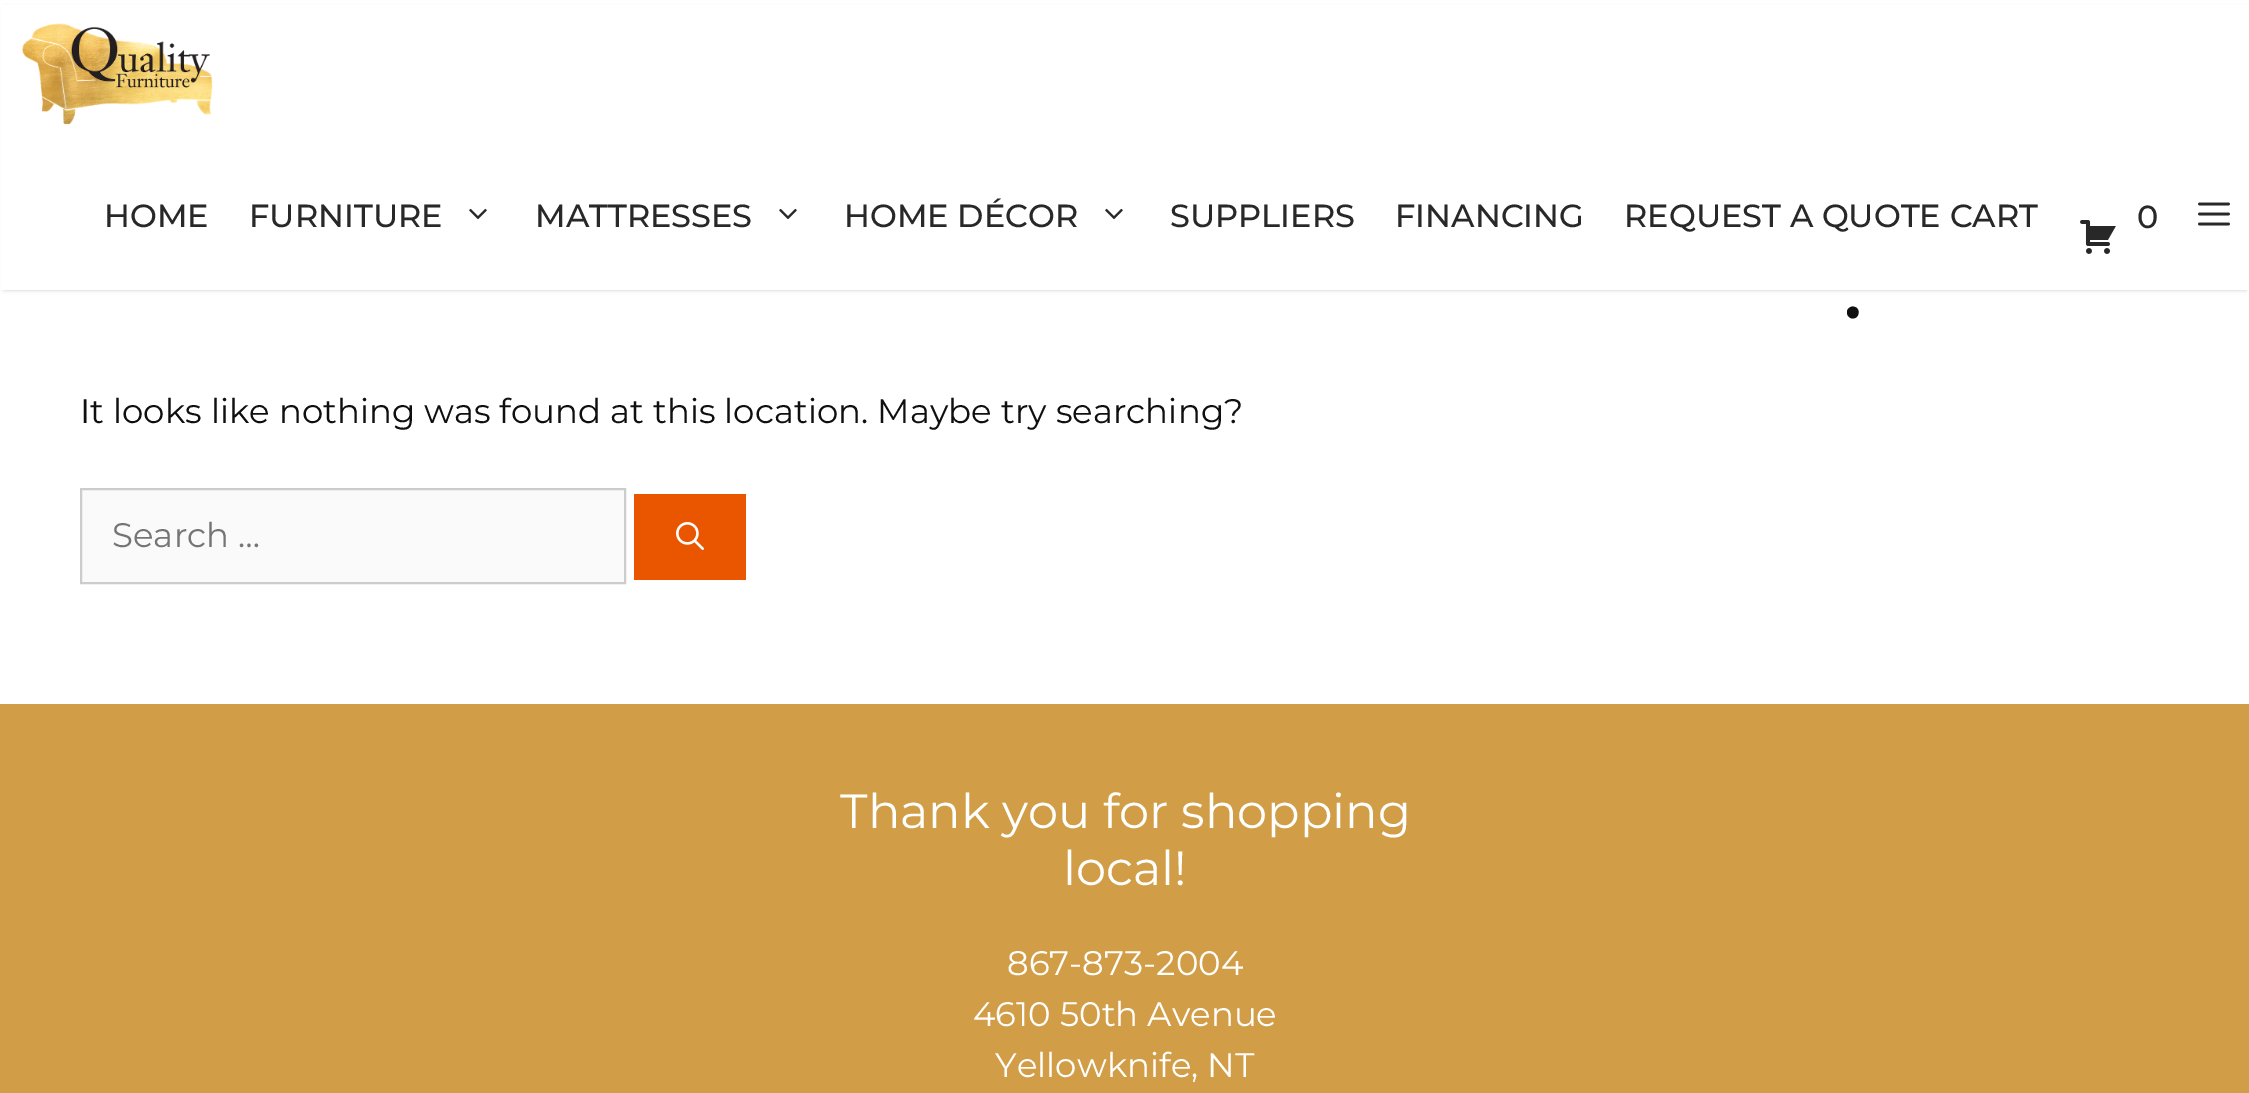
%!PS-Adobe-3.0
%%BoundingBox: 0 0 2249 1093
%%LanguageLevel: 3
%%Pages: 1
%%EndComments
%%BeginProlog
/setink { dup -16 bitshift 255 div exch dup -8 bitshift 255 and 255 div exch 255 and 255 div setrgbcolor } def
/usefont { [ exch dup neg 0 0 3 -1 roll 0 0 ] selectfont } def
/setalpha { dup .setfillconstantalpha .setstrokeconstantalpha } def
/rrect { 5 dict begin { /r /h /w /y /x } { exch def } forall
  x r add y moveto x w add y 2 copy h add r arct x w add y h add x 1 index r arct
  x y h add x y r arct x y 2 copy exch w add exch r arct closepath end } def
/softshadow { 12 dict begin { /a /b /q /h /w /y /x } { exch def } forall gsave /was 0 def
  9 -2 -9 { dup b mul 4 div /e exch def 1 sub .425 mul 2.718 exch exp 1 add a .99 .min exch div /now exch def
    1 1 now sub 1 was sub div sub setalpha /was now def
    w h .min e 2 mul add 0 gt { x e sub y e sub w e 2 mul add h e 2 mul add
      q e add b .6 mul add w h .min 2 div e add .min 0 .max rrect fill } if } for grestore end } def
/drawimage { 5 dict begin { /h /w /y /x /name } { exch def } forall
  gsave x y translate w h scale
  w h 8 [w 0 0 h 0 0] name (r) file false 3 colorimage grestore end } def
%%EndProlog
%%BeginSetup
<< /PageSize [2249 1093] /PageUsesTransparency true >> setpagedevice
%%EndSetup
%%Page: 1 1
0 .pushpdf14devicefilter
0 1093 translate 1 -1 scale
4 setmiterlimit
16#FFFFFF setink
0 0 2249 1093 rectfill
16#000000 setink
4 8 2242 282 0 2 0.2 softshadow
16#FFFFFF setink
1 5 2248 285 rectfill
(img1.raw) 22 23 191 102 drawimage
/Montserrat-Medium 32 usefont
16#282828 setink
104 227 moveto (HOME) show
249 227 moveto (FURNITURE) show
(img2.raw) 469 208 18 12 drawimage
535 227 moveto (MATTRESSES) show
(img2.raw) 779 208 18 12 drawimage
844 227 moveto (HOME DÉCOR) show
(img2.raw) 1105 208 18 12 drawimage
[
    [(SUPPLIERS) 1170 227]
    [(FINANCING) 1395 227]
    [(REQUEST A QUOTE CART) 1624 227]
    [(0) 2137 228]
] { aload pop moveto show } forall
(img3.raw) 2080 220 36 34 drawimage
(img4.raw) 2198 202 32 24 drawimage
/Montserrat-Regular 112 usefont
16#0F0F0F setink
1841 318 moveto (.) show
/Montserrat-Regular 34 usefont
80 423 moveto (It looks like nothing was found at this location. Maybe try searching?) show
16#FAFAFA setink
81 489 moveto 625 489 lineto 625 583 lineto 81 583 lineto closepath gsave fill grestore
16#CCCCCC setink
2 setlinewidth
stroke
16#757575 setink
112 547 moveto (Search …) show
16#EA5600 setink
634 494 112 86 rectfill
(img5.raw) 676 522 28 28 drawimage
16#D19E47 setink
0 704 2249 389 rectfill
/Montserrat-Regular 48 usefont
16#FFFFFF setink
840 828 moveto (Thank you for shopping) show
1063 885 moveto (local!) show
/Montserrat-Regular 34 usefont
[
    [(867-873-2004) 1007 975]
    [(4610 50th Avenue) 973 1026]
    [(Yellowknife, NT) 995 1077]
] { aload pop moveto show } forall
.poppdf14devicefilter showpage
%%EOF
